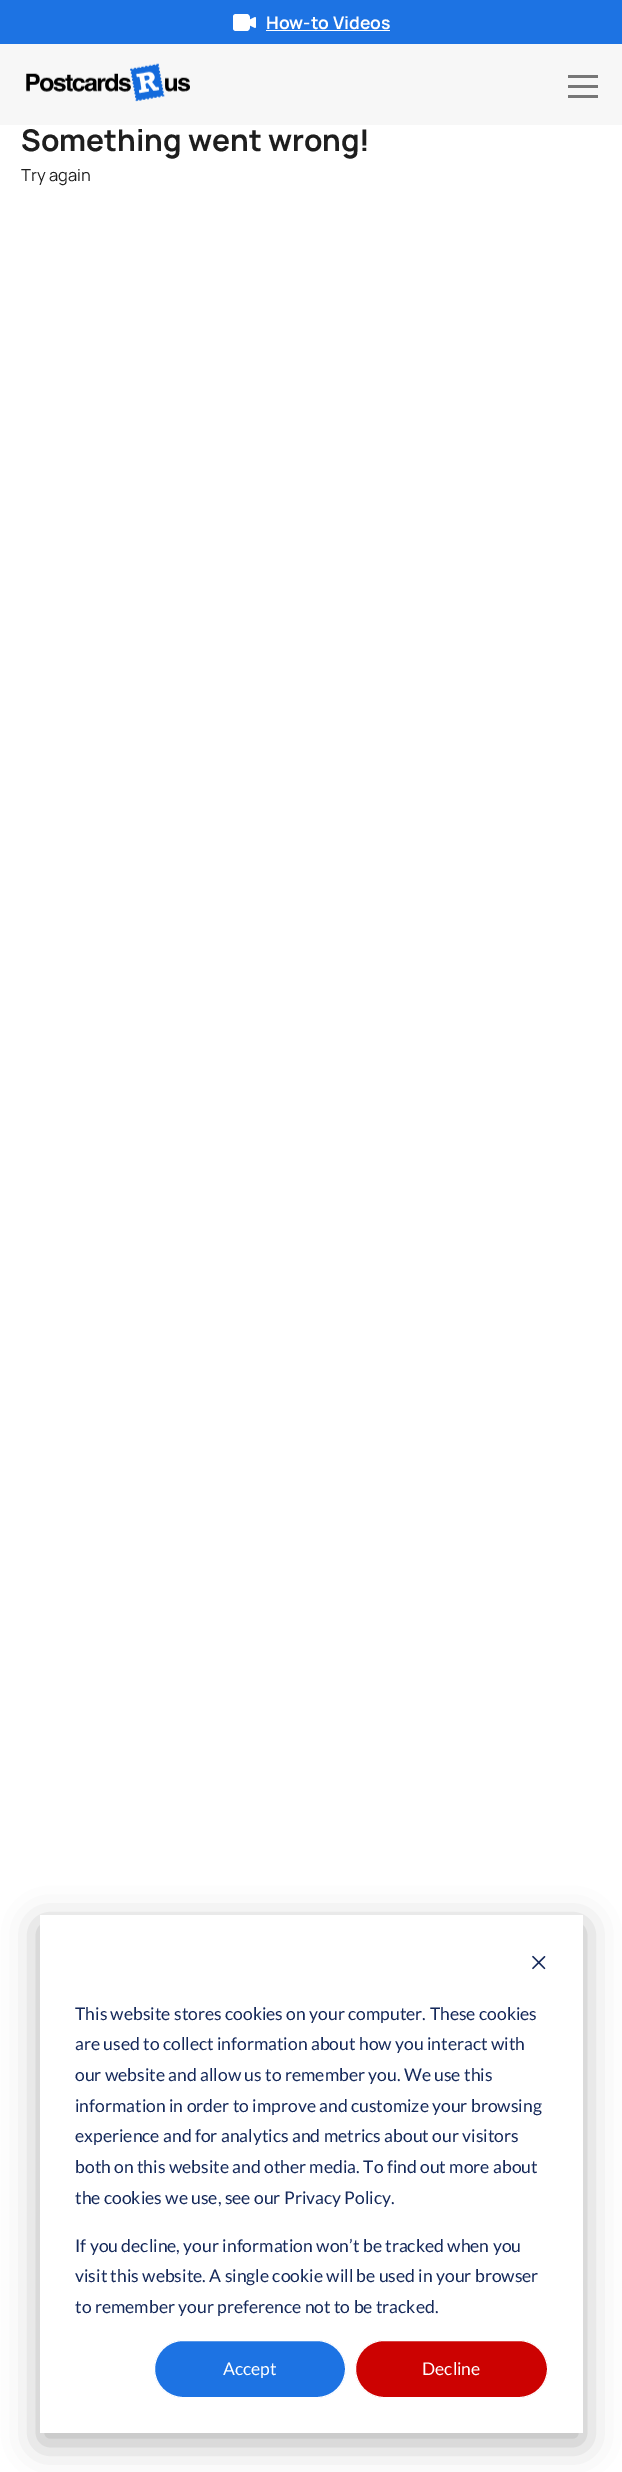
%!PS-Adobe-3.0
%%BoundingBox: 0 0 622 2472
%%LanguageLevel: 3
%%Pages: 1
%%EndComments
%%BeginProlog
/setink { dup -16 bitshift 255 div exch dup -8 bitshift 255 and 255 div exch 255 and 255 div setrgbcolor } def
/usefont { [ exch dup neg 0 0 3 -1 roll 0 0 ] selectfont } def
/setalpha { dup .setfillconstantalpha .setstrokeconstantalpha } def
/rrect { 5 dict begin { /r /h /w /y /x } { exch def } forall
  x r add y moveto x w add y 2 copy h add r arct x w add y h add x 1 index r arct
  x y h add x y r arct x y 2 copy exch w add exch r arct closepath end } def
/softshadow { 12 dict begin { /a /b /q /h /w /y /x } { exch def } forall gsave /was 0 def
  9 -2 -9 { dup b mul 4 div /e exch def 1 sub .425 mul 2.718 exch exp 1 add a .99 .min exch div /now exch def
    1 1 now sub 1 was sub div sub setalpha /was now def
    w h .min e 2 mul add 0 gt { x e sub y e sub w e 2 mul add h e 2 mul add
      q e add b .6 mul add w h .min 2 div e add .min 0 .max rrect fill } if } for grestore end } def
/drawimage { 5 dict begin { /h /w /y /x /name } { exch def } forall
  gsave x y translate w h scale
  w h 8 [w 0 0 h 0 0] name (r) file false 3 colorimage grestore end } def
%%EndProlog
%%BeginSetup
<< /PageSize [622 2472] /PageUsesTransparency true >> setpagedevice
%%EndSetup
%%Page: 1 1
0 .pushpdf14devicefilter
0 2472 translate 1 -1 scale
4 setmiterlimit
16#FFFFFF setink
0 0 622 2472 rectfill
16#F7F7F7 setink
0 44 622 81 rectfill
16#1D73E3 setink
0 0 622 44 rectfill
(img1.raw) 233 14 23 17 drawimage
/Manrope-Bold 17.5 usefont
16#FFFFFF setink
266 29 moveto (How-to Videos) show
266 30 124 1 rectfill
(img2.raw) 26 63 164 39 drawimage
[
    [568 75 30 3 16#777777]
    [568 85 30 3 16#777777]
    [568 95 30 3 16#777777]
] { aload pop setink rectfill } forall
/Manrope-Bold 30 usefont
16#1E1E1E setink
21 151 moveto (Something went wrong!) show
/Manrope-Regular 16.5 usefont
21 181 moveto (Try again) show
16#000000 setink
40 1925 543 518 0 17.5 0.28 softshadow
16#FFFFFF setink
40 1915 543 518 rectfill
(img3.raw) 532 1955 14 15 drawimage
/Lato-Regular 17.5 usefont
16#15295A setink
[
    [(This website stores cookies on your computer. These cookies) 75 2020]
    [(are used to collect information about how you interact with) 75 2050]
    [(our website and allow us to remember you. We use this) 75 2081]
    [(information in order to improve and customize your browsing) 75 2112]
    [(experience and for analytics and metrics about our visitors) 75 2142]
    [(both on this website and other media. To find out more about) 75 2173]
    [(the cookies we use, see our Privacy Policy.) 75 2204]
    [(If you decline, your information won’t be tracked when you) 75 2252]
    [(visit this website. A single cookie will be used in your browser) 75 2282]
    [(to remember your preference not to be tracked.) 75 2313]
] { aload pop moveto show } forall
16#1D73E3 setink
154.5 2340.5 191 57 28.5 rrect gsave fill grestore
16#FFFFFF setink
stroke
223 2375 moveto (Accept) show
16#CC0201 setink
355.5 2340.5 192 57 28.5 rrect gsave fill grestore
16#FFFFFF setink
stroke
422 2375 moveto (Decline) show
.poppdf14devicefilter showpage
%%EOF
